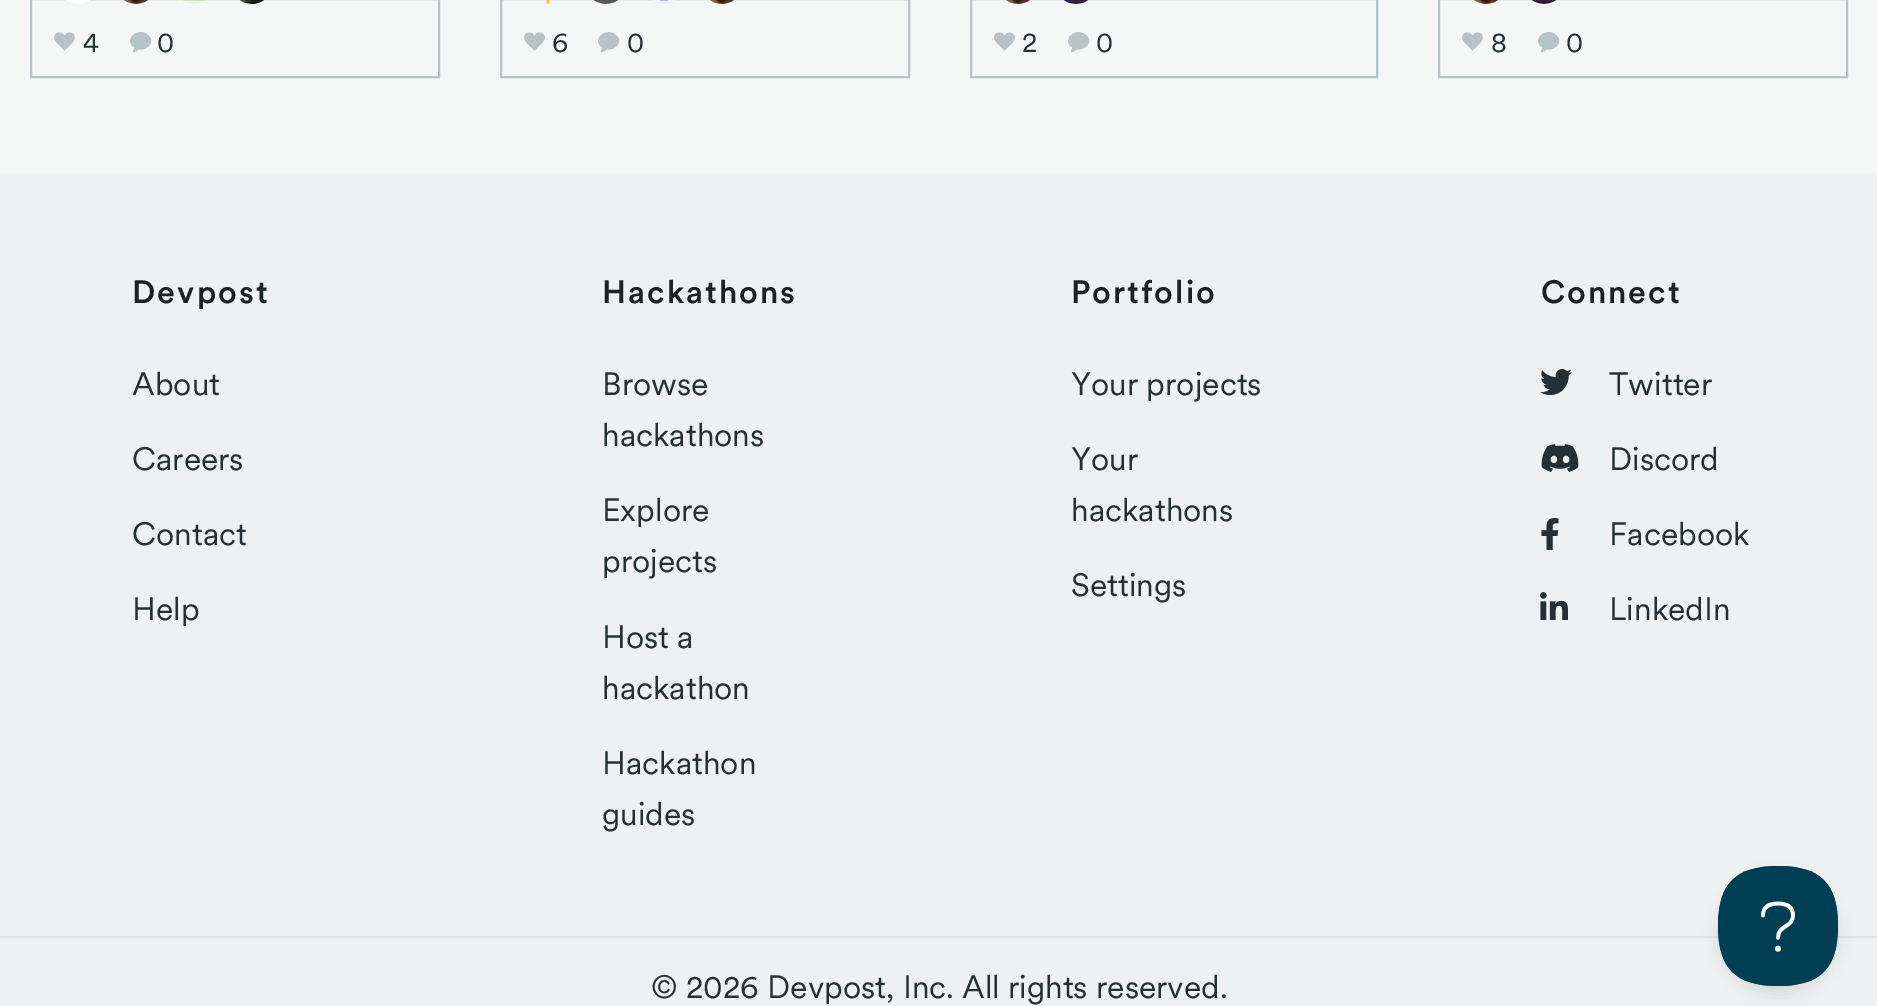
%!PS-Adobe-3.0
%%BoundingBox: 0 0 1877 1006
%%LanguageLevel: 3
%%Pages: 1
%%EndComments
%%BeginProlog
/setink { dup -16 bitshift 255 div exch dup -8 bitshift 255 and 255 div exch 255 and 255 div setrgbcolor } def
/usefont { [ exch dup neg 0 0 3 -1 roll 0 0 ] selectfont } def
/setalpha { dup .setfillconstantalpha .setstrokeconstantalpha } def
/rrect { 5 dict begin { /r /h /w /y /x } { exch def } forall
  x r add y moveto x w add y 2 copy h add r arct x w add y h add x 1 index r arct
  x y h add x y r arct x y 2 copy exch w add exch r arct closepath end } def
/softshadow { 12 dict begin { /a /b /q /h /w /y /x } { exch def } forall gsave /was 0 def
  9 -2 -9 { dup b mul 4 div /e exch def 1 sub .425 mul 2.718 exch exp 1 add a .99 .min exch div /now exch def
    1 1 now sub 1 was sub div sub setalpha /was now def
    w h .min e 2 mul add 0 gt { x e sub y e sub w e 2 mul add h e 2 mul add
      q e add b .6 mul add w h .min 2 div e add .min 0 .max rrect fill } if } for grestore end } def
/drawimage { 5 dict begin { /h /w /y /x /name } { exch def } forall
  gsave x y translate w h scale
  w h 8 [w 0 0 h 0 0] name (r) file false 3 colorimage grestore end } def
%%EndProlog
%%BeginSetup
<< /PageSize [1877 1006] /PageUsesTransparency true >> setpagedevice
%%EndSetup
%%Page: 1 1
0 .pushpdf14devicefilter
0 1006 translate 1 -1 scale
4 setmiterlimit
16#F5F7F7 setink
0 0 1877 1006 rectfill
16#B7C3C7 setink
2 setlinewidth
31 -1 408 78 rectstroke
(img1.raw) 66 0 24 4 drawimage
(img2.raw) 123 0 26 4 drawimage
(img3.raw) 182 0 24 4 drawimage
(img4.raw) 239 0 26 4 drawimage
(img5.raw) 54 32 21 19 drawimage
/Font-Regular 28 usefont
16#233136 setink
83 52 moveto (4) show
16#B7C3C7 setink
148 35 moveto 156 41.5 147.5 50.5 138.5 49.5 curveto 136 51.5 lineto 134 52 lineto 131.5 52.5 134 49.5 134.5 47.5 curveto 122.5 40.5 137.5 26 148 35 curveto closepath fill
16#233136 setink
157 52 moveto (0) show
16#B7C3C7 setink
501 -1 408 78 rectstroke
(img6.raw) 545 0 6 4 drawimage
(img7.raw) 593 0 26 4 drawimage
(img8.raw) 653 0 22 4 drawimage
(img9.raw) 709 0 26 4 drawimage
(img5.raw) 524 32 21 19 drawimage
16#233136 setink
552 52 moveto (6) show
16#B7C3C7 setink
616 35 moveto 624 41.5 615.5 50.5 606.5 49.5 curveto 604 51.5 lineto 602 52 lineto 599.5 52.5 602 49.5 602.5 47.5 curveto 590.5 40.5 605.5 26 616 35 curveto closepath fill
16#233136 setink
627 52 moveto (0) show
16#B7C3C7 setink
971 -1 406 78 rectstroke
(img10.raw) 1005 0 26 4 drawimage
(img11.raw) 1063 0 26 4 drawimage
(img5.raw) 994 32 21 19 drawimage
16#233136 setink
1022 52 moveto (2) show
16#B7C3C7 setink
1086 35 moveto 1094 41.5 1085.5 50.5 1076.5 49.5 curveto 1074 51.5 lineto 1072 52 lineto 1069.5 52.5 1072 49.5 1072.5 47.5 curveto 1060.5 40.5 1075.5 26 1086 35 curveto closepath fill
16#233136 setink
1096 52 moveto (0) show
16#B7C3C7 setink
1439 -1 408 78 rectstroke
(img2.raw) 1473 0 26 4 drawimage
(img12.raw) 1531 0 26 4 drawimage
(img5.raw) 1462 32 21 19 drawimage
16#233136 setink
1491 52 moveto (8) show
16#B7C3C7 setink
1556 35 moveto 1564 41.5 1555.5 50.5 1546.5 49.5 curveto 1544 51.5 lineto 1542 52 lineto 1539.5 52.5 1542 49.5 1542.5 47.5 curveto 1530.5 40.5 1545.5 26 1556 35 curveto closepath fill
16#233136 setink
1566 52 moveto (0) show
16#EDF1F2 setink
0 174 1877 832 rectfill
/Font-Medium 32 usefont
16#192325 setink
132 303 moveto 2 0 (Devpost) ashow
/Font-Regular 32 usefont
16#233136 setink
[
    [(About) 132 395]
    [(Careers) 132 470]
    [(Contact) 132 545]
    [(Help) 132 620]
] { aload pop moveto show } forall
/Font-Medium 32 usefont
16#192325 setink
602 303 moveto 2 0 (Hackathons) ashow
/Font-Regular 32 usefont
16#233136 setink
[
    [(Browse) 602 395]
    [(hackathons) 602 446]
    [(Explore) 602 521]
    [(projects) 602 572]
    [(Host a) 602 648]
    [(hackathon) 602 699]
    [(Hackathon) 602 774]
    [(guides) 602 825]
] { aload pop moveto show } forall
/Font-Medium 32 usefont
16#192325 setink
1071 303 moveto 2 0 (Portfolio) ashow
/Font-Regular 32 usefont
16#233136 setink
[
    [(Your projects) 1071 395]
    [(Your) 1071 470]
    [(hackathons) 1071 521]
    [(Settings) 1071 596]
] { aload pop moveto show } forall
/Font-Medium 32 usefont
16#192325 setink
1541 303 moveto 2 0 (Connect) ashow
(img13.raw) 1540 369 32 26 drawimage
/Font-Regular 32 usefont
16#233136 setink
1609 395 moveto (Twitter) show
(img14.raw) 1541 444 38 28 drawimage
1609 470 moveto (Discord) show
(img15.raw) 1541 518 18 32 drawimage
1609 545 moveto (Facebook) show
(img16.raw) 1540 592 28 28 drawimage
1609 620 moveto (LinkedIn) show
16#DCE6E9 setink
0 936 1877 2 rectfill
16#233136 setink
651 998 moveto (© 2026 Devpost, Inc. All rights reserved.) show
16#000000 setink
1718 874 120 120 60 7 0.1 softshadow
(img17.raw) 1718 866 120 120 drawimage
.poppdf14devicefilter showpage
%%EOF
